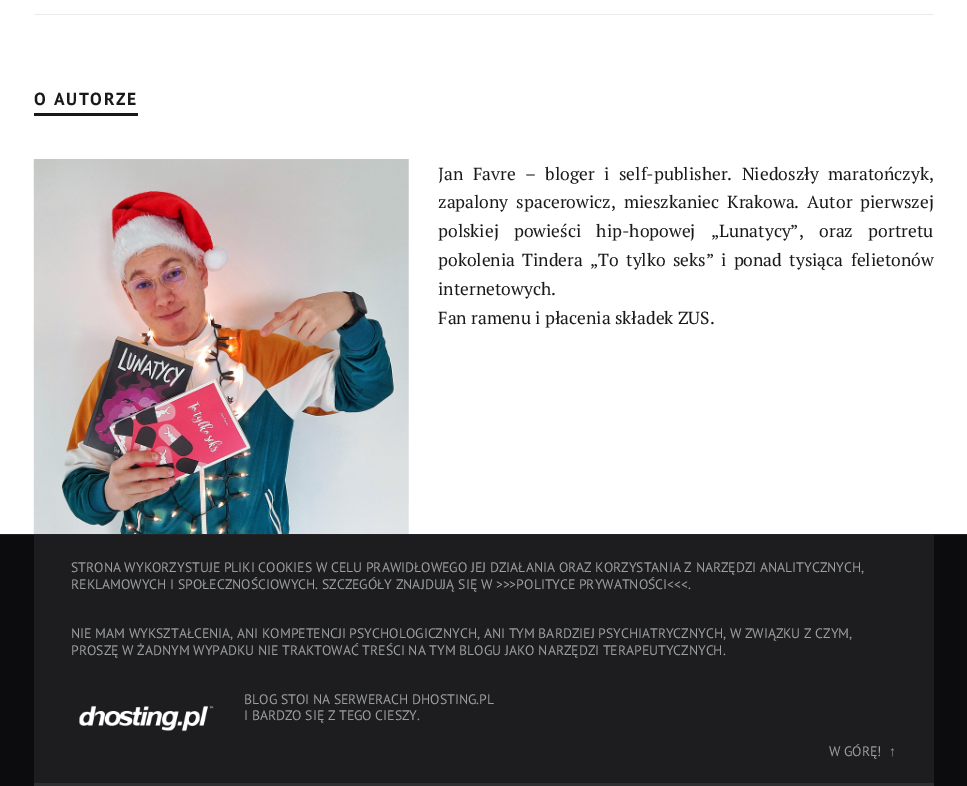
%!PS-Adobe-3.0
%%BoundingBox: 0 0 967 786
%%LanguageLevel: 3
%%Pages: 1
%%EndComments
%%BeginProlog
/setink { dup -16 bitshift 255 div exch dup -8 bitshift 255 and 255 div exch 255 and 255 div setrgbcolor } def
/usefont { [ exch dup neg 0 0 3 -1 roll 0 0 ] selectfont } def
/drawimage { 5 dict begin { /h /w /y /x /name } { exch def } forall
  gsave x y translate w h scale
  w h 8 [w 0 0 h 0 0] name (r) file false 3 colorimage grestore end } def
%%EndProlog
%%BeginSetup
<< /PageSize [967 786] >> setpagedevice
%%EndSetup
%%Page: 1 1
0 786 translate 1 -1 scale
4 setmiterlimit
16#FFFFFF setink
0 0 967 786 rectfill
16#EBEBEB setink
34 14 900 1 rectfill
16#191919 setink
34 113 104 3 rectfill
/PTSans-Bold 17.5 usefont
34 105 moveto 1.75 0 (O AUTORZE) ashow
(img1.raw) 33 159 376 375 drawimage
/PTSerif-Regular 17.5 usefont
438 180 moveto 5.25 0 32 (Jan Favre – bloger i self-publisher. Niedoszły maratończyk,) widthshow
438 208 moveto 3.75 0 32 (zapalony spacerowicz, mieszkaniec Krakowa. Autor pierwszej) widthshow
438 237 moveto 11 0 32 (polskiej powieści hip-hopowej) widthshow
711 237 moveto („Lunatycy”) show
799 237 moveto 11 0 32 (, oraz portretu) widthshow
438 266 moveto 3 0 32 (pokolenia Tindera) widthshow
590 266 moveto 3 0 32 („To tylko seks”) widthshow
721 266 moveto 3 0 32 (i ponad tysiąca felietonów) widthshow
438 295 moveto (internetowych.) show
438 324 moveto (Fan ramenu i płacenia składek ZUS.) show
[
    [0 535 967 251 16#0C0C0E]
    [0 534 967 1 16#242426]
    [34 535 900 248 16#1D1D1F]
    [34 783 900 3 16#2F2F31]
] { aload pop setink rectfill } forall
/PTSans-Regular 13.75 usefont
16#9C9FA0 setink
[
    [(STRONA WYKORZYSTUJE PLIKI COOKIES W CELU PRAWIDŁOWEGO JEJ DZIAŁANIA ORAZ KORZYSTANIA Z NARZĘDZI ANALITYCZNYCH,) 71 572]
    [(REKLAMOWYCH I SPOŁECZNOŚCIOWYCH. SZCZEGÓŁY ZNAJDUJĄ SIĘ W >>>POLITYCE PRYWATNOŚCI<<<.) 71 589]
    [(NIE MAM WYKSZTAŁCENIA, ANI KOMPETENCJI PSYCHOLOGICZNYCH, ANI TYM BARDZIEJ PSYCHIATRYCZNYCH, W ZWIĄZKU Z CZYM,) 71 638]
    [(PROSZĘ W ŻADNYM WYPADKU NIE TRAKTOWAĆ TREŚCI NA TYM BLOGU JAKO NARZĘDZI TERAPEUTYCZNYCH.) 71 655]
    [(BLOG STOI NA SERWERACH DHOSTING.PL) 244 704]
] { aload pop moveto show } forall
(img2.raw) 79 705 135 27 drawimage
244 720 moveto (I BARDZO SIĘ Z TEGO CIESZY.) show
829 756 moveto (W GÓRĘ!) show
/LiberationSans-Regular 13.75 usefont
889 756 moveto (↑) show
showpage
%%EOF
